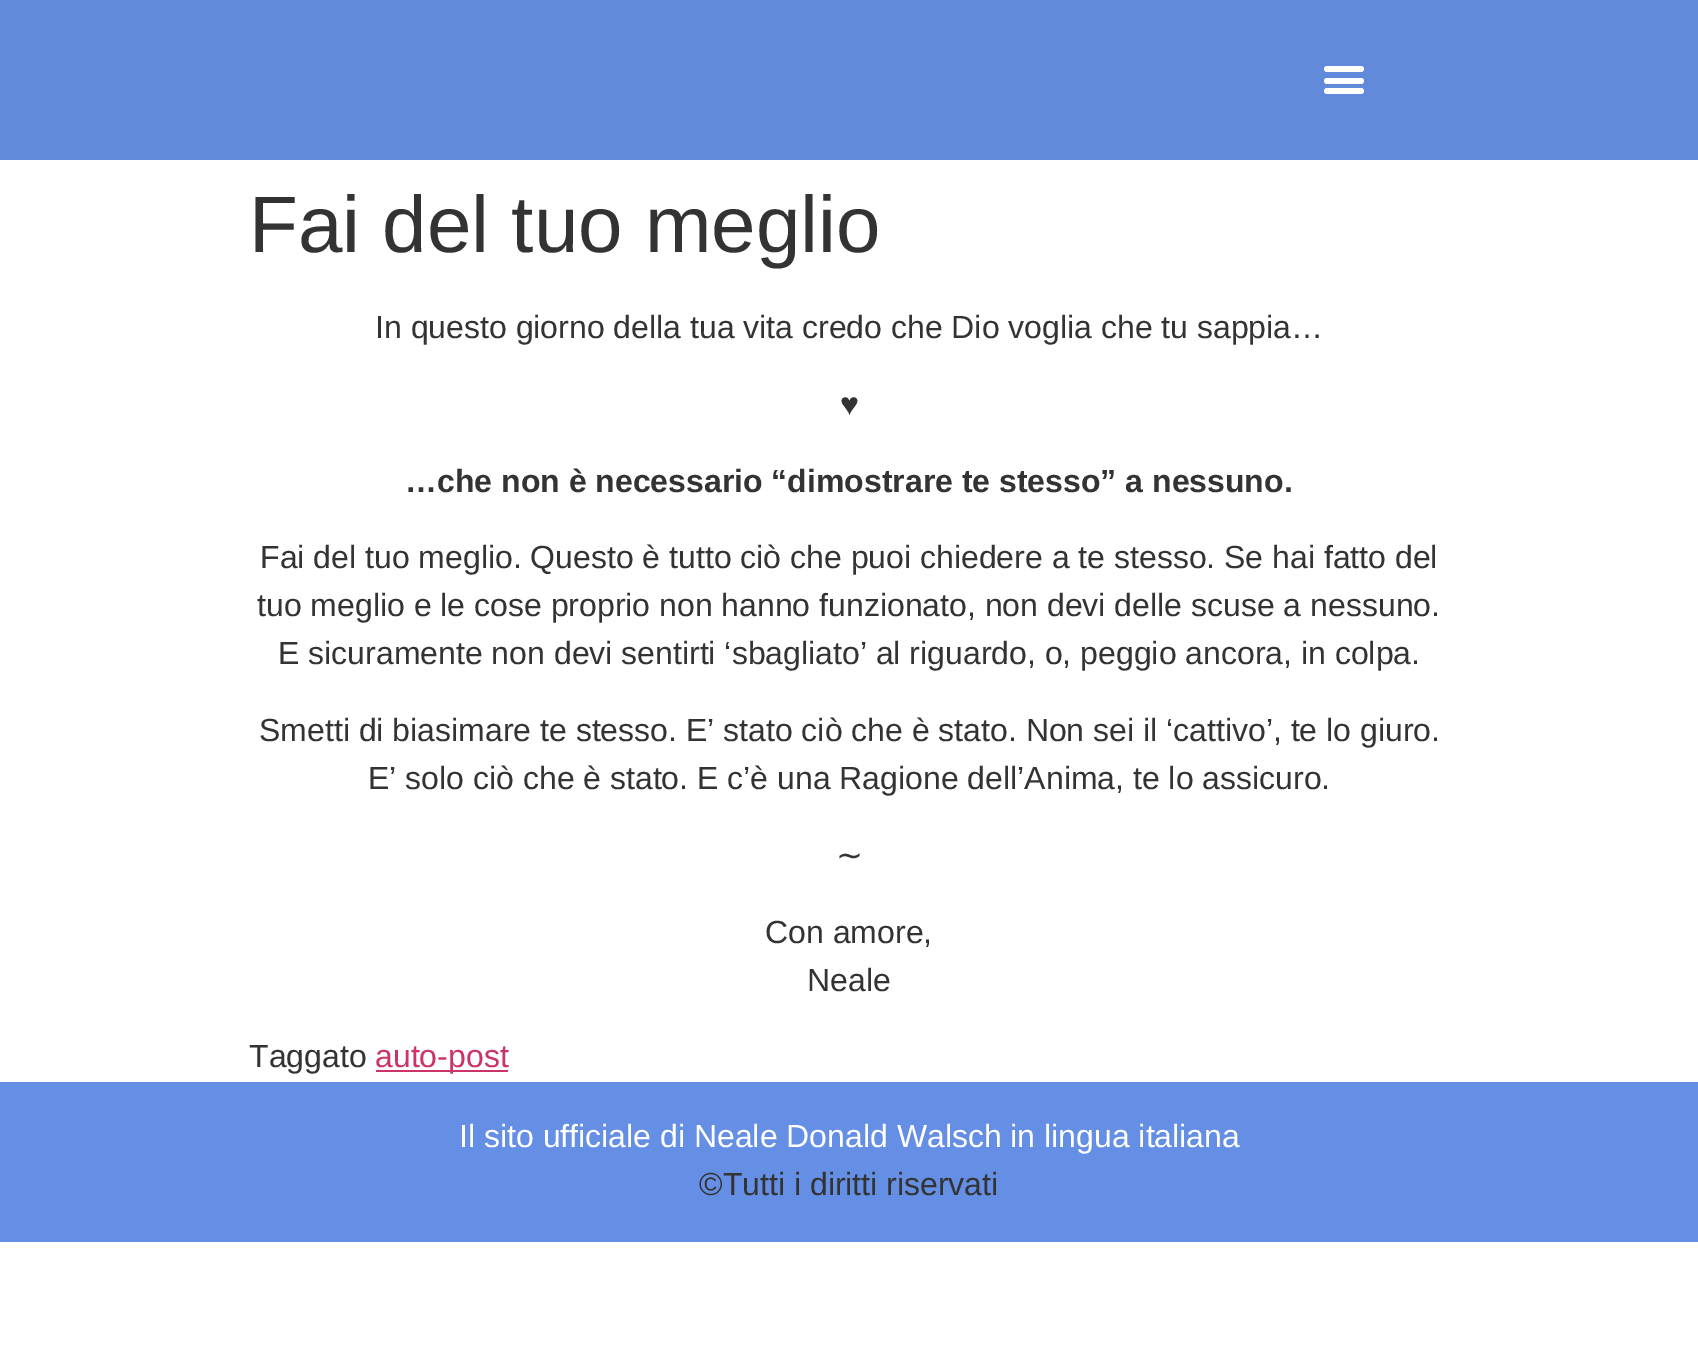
%!PS-Adobe-3.0
%%BoundingBox: 0 0 1698 1346
%%LanguageLevel: 3
%%Pages: 1
%%EndComments
%%BeginProlog
/setink { dup -16 bitshift 255 div exch dup -8 bitshift 255 and 255 div exch 255 and 255 div setrgbcolor } def
/usefont { [ exch dup neg 0 0 3 -1 roll 0 0 ] selectfont } def
/rrect { 5 dict begin { /r /h /w /y /x } { exch def } forall
  x r add y moveto x w add y 2 copy h add r arct x w add y h add x 1 index r arct
  x y h add x y r arct x y 2 copy exch w add exch r arct closepath end } def
%%EndProlog
%%BeginSetup
<< /PageSize [1698 1346] >> setpagedevice
%%EndSetup
%%Page: 1 1
0 1346 translate 1 -1 scale
4 setmiterlimit
16#FFFFFF setink
0 0 1698 1346 rectfill
16#628ADB setink
0 0 1698 160 rectfill
16#FFFFFF setink
1324 78 40 6 3 rrect fill
1324 66 40 6 3 rrect fill
1324 88 40 6 3 rrect fill
/LiberationSans-Regular 80 usefont
16#333333 setink
249 252 moveto (Fai del tuo meglio) show
/LiberationSans-Regular 32 usefont
375 338 moveto (In questo giorno della tua vita credo che Dio voglia che tu sappia…) show
840 415 moveto (♥) show
/LiberationSans-Bold 32 usefont
405 492 moveto (…che non è necessario “dimostrare te stesso” a nessuno.) show
/LiberationSans-Regular 32 usefont
[
    [(Fai del tuo meglio. Questo è tutto ciò che puoi chiedere a te stesso. Se hai fatto del) 260 568]
    [(tuo meglio e le cose proprio non hanno funzionato, non devi delle scuse a nessuno.) 257 616]
    [(E sicuramente non devi sentirti ‘sbagliato’ al riguardo, o, peggio ancora, in colpa.) 278 664]
    [(Smetti di biasimare te stesso. E’ stato ciò che è stato. Non sei il ‘cattivo’, te lo giuro.) 259 741]
    [(E’ solo ciò che è stato. E c’è una Ragione dell’Anima, te lo assicuro.) 368 789]
] { aload pop moveto show } forall
/DejaVuSans-Regular 32 usefont
836 866 moveto (∼) show
/LiberationSans-Regular 32 usefont
[
    [(Con amore,) 765 943]
    [(Neale) 807 991]
    [(Taggato) 249 1067]
] { aload pop moveto show } forall
16#CC3366 setink
376 1070 132 2 rectfill
375 1067 moveto (auto-post) show
16#658FE4 setink
0 1082 1698 160 rectfill
16#FFFFFF setink
459 1147 moveto (Il sito ufficiale di Neale Donald Walsch in lingua italiana) show
16#333333 setink
699 1195 moveto (©Tutti i diritti riservati) show
showpage
%%EOF
